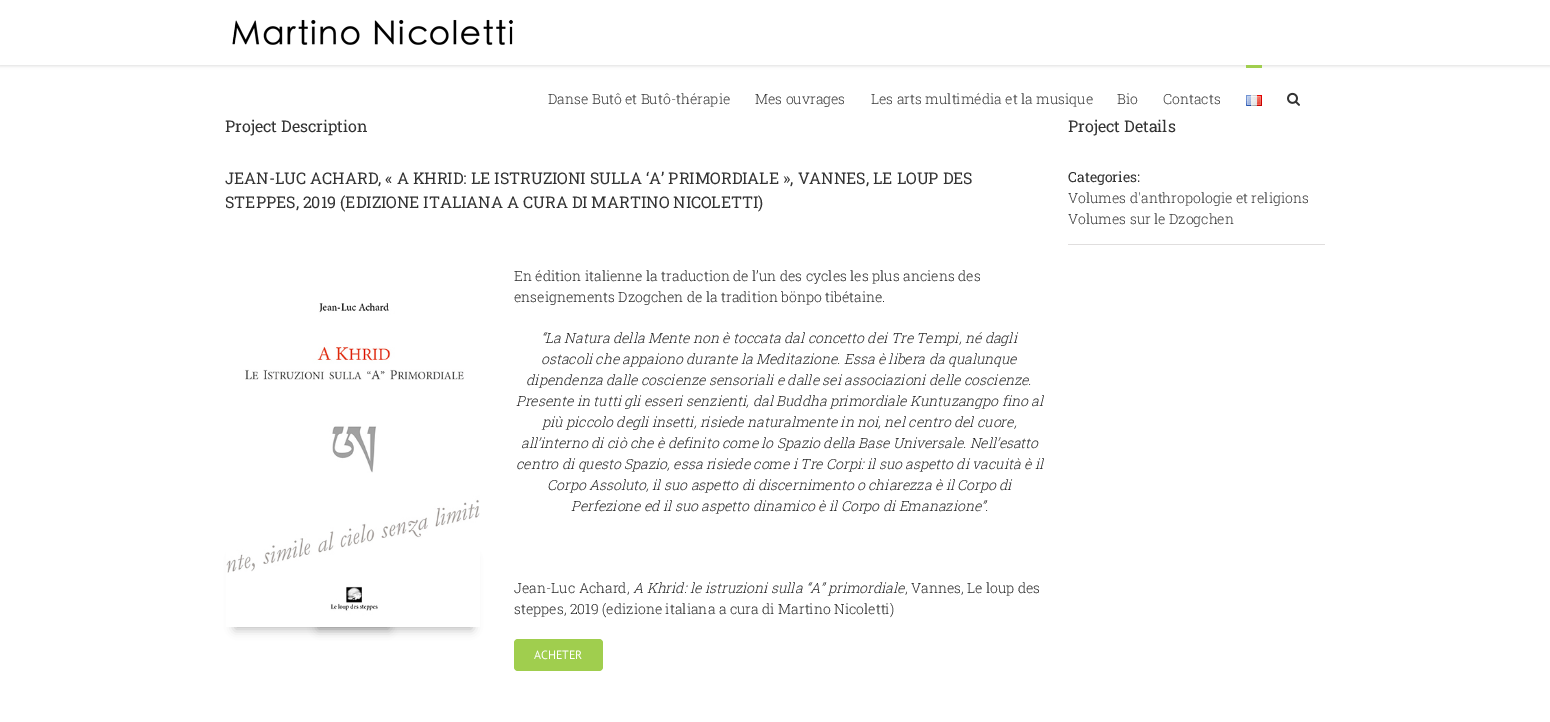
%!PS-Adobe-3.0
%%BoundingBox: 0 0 1550 722
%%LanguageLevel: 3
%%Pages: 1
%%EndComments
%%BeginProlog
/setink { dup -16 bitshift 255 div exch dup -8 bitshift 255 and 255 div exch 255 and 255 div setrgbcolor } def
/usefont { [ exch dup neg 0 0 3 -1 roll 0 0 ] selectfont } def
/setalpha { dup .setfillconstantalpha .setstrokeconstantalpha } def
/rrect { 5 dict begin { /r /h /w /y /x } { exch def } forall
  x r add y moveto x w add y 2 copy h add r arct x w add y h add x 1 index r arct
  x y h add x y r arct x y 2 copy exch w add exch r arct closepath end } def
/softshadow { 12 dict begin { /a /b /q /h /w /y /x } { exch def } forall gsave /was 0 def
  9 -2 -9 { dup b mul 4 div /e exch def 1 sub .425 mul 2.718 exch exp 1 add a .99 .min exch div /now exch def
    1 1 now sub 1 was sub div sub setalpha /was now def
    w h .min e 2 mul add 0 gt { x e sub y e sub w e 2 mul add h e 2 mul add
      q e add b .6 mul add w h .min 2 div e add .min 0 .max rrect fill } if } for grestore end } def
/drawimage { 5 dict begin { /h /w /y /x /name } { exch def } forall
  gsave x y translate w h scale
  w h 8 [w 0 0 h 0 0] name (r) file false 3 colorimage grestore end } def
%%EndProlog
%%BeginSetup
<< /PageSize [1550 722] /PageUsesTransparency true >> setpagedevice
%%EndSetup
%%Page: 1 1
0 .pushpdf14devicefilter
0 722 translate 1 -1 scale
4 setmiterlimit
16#FFFFFF setink
0 0 1550 722 rectfill
16#000000 setink
0 1 1550 65 0 1.5 0.12 softshadow
16#FFFFFF setink
0 0 1550 65 rectfill
(img1.raw) 232 19 281 26 drawimage
/RobotoSlab-Light 14 usefont
16#333333 setink
[
    [(Danse Butô et Butô-thérapie) 548 104]
    [(Mes ouvrages) 755 104]
    [(Les arts multimédia et la musique) 871 104]
    [(Bio) 1117 104]
    [(Contacts) 1163 104]
] { aload pop moveto show } forall
16#A0CE4E setink
1246 65 16 3 rectfill
(img2.raw) 1246 95 16 11 drawimage
(img3.raw) 1287 92 13 14 drawimage
/RobotoSlab-Regular 16 usefont
16#333333 setink
[
    [(Project Description) 225 132]
    [(JEAN-LUC ACHARD, « A KHRID: LE ISTRUZIONI SULLA ‘A’ PRIMORDIALE », VANNES, LE LOUP DES) 225 184]
    [(STEPPES, 2019 \(EDIZIONE ITALIANA A CURA DI MARTINO NICOLETTI\)) 225 208]
] { aload pop moveto show } forall
16#4D4D4D setink
235 557 154 72 0 5 0.4 softshadow
16#000000 setink
318 557 154 72 0 5 0.28 softshadow
(img4.raw) 226 303 254 324 drawimage
/RobotoSlab-Light 14 usefont
16#262626 setink
514 281 moveto (En édition italienne la traduction de l’un des cycles les plus anciens des) show
514 302 moveto (enseignements Dzogchen de la tradition bönpo tibétaine.) show
/RobotoSlab-LightItalic 14 usefont
[
    [(“La Natura della Mente non è toccata dal concetto dei Tre Tempi, né dagli) 541 343]
    [(ostacoli che appaiono durante la Meditazione. Essa è libera da qualunque) 541 364]
    [(dipendenza dalle coscienze sensoriali e dalle sei associazioni delle coscienze.) 526 385]
    [(Presente in tutti gli esseri senzienti, dal Buddha primordiale Kuntuzangpo fino al) 516 406]
    [(più piccolo degli insetti, risiede naturalmente in noi, nel centro del cuore,) 542 427]
    [(all’interno di ciò che è definito come lo Spazio della Base Universale. Nell’esatto) 521 448]
    [(centro di questo Spazio, essa risiede come i Tre Corpi: il suo aspetto di vacuità è il) 516 469]
    [(Corpo Assoluto, il suo aspetto di discernimento o chiarezza è il Corpo di) 547 490]
    [(Perfezione ed il suo aspetto dinamico è il Corpo di Emanazione”.) 571 511]
] { aload pop moveto show } forall
/RobotoSlab-Light 14 usefont
514 593 moveto (Jean-Luc Achard,) show
/RobotoSlab-LightItalic 14 usefont
633 593 moveto (A Khrid: le istruzioni sulla “A” primordiale) show
/RobotoSlab-Light 14 usefont
905 593 moveto (, Vannes, Le loup des) show
514 614 moveto (steppes, 2019 \(edizione italiana a cura di Martino Nicoletti\)) show
16#A0CE4E setink
514 639 89 32 4 rrect fill
/PTSans-Regular 12 usefont
16#FFFFFF setink
534 659 moveto (ACHETER) show
/RobotoSlab-Regular 16 usefont
16#333333 setink
1068 132 moveto (Project Details) show
16#E0DEDE setink
1068 244 257 1 rectfill
/RobotoSlab-Regular 14 usefont
16#333333 setink
1068 182 moveto (Categories:) show
/RobotoSlab-Light 14 usefont
1068 203 moveto (Volumes d'anthropologie et religions) show
1068 224 moveto (Volumes sur le Dzogchen) show
.poppdf14devicefilter showpage
%%EOF
